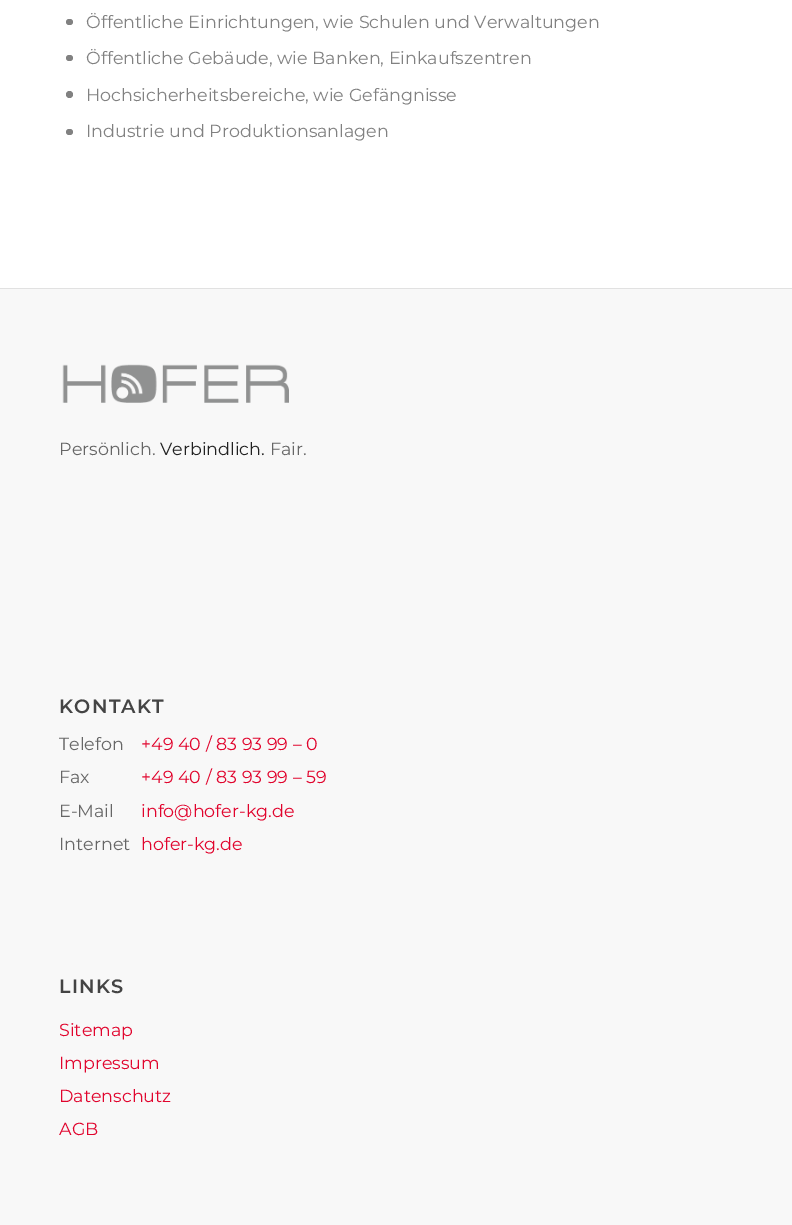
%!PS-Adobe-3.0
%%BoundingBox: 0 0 792 1225
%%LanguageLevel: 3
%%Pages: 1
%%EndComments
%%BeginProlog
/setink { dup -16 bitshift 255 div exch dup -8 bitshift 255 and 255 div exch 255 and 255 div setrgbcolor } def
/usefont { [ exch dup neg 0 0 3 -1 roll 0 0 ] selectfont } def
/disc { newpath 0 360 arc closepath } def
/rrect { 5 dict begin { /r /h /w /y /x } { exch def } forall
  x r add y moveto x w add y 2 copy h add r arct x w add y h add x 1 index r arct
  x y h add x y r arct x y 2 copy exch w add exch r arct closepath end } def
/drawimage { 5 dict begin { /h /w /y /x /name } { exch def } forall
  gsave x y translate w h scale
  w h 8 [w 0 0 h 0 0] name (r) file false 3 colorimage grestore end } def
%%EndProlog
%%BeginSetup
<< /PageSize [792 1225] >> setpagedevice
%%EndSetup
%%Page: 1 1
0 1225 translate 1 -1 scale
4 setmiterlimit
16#FFFFFF setink
0 0 792 1225 rectfill
16#818181 setink
66 19 7 6 3 rrect fill
/Montserrat-Regular 17.5 usefont
86 28 moveto (Öffentliche Einrichtungen, wie Schulen und Verwaltungen) show
66 55 7 6 3 rrect fill
86 64 moveto (Öffentliche Gebäude, wie Banken, Einkaufszentren) show
69.5 94.5 3.5 disc fill
86 101 moveto (Hochsicherheitsbereiche, wie Gefängnisse) show
66 129 7 6 3 rrect fill
86 137 moveto (Industrie und Produktionsanlagen) show
16#F8F8F8 setink
0 289 792 936 rectfill
16#E1E1E1 setink
0 288 792 1 rectfill
(img1.raw) 62 364 227 39 drawimage
16#666666 setink
59 455 moveto (Persönlich.) show
16#212121 setink
160 455 moveto (Verbindlich.) show
16#666666 setink
270 455 moveto (Fair.) show
/Montserrat-SemiBold 19.25 usefont
16#444444 setink
59 713 moveto 1.25 0 (KONTAKT) ashow
/Montserrat-Regular 17.5 usefont
16#666666 setink
59 750 moveto (Telefon) show
16#E1042D setink
141 750 moveto (+49 40 / 83 93 99 – 0) show
16#666666 setink
59 783 moveto (Fax) show
16#E1042D setink
141 783 moveto (+49 40 / 83 93 99 – 59) show
16#666666 setink
59 817 moveto (E-Mail) show
16#E1042D setink
141 817 moveto (info@hofer-kg.de) show
16#666666 setink
59 850 moveto (Internet) show
16#E1042D setink
141 850 moveto (hofer-kg.de) show
/Montserrat-SemiBold 19.25 usefont
16#444444 setink
59 993 moveto 1.25 0 (LINKS) ashow
/Montserrat-Regular 17.5 usefont
16#E1042D setink
[
    [(Sitemap) 59 1036]
    [(Impressum) 59 1069]
    [(Datenschutz) 59 1102]
    [(AGB) 59 1135]
] { aload pop moveto show } forall
showpage
%%EOF
